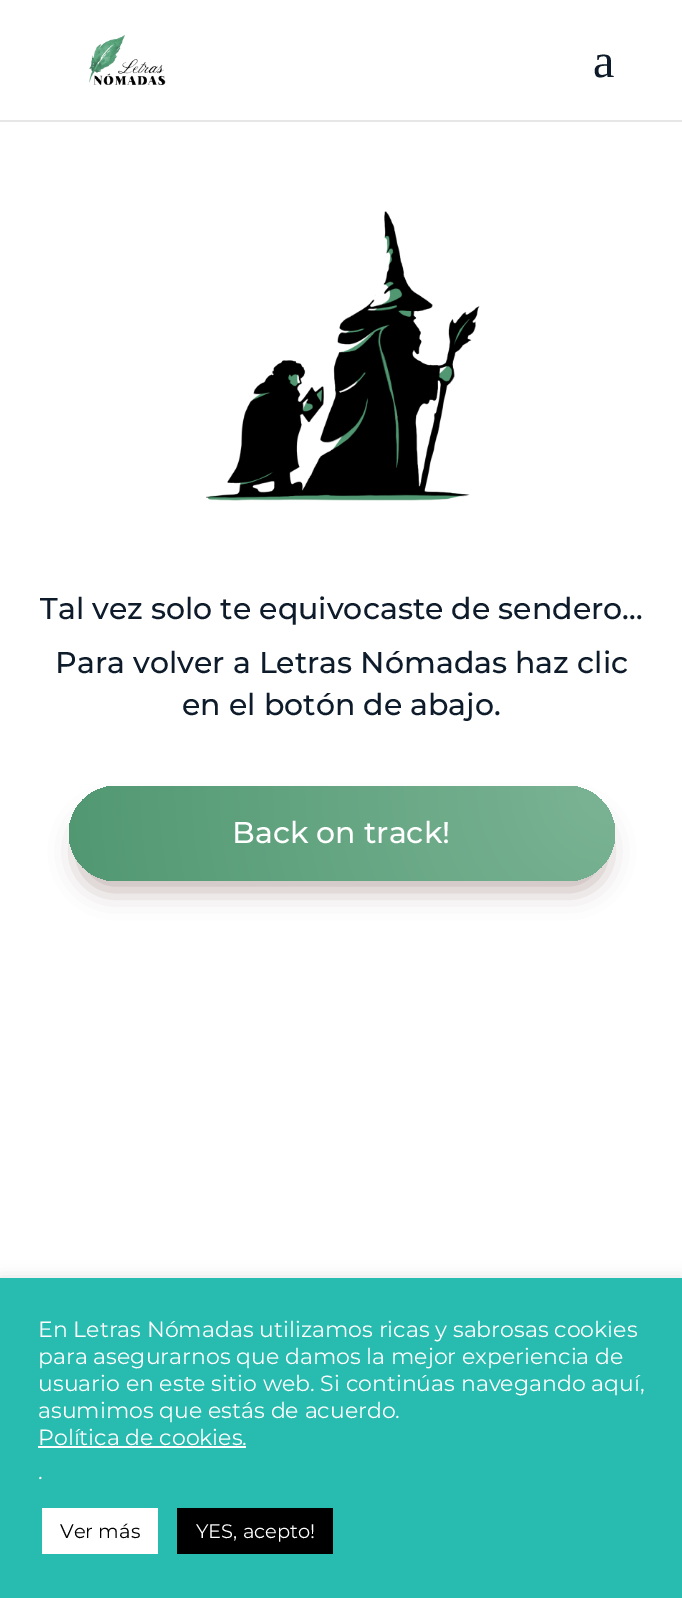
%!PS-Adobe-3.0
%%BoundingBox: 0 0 682 1598
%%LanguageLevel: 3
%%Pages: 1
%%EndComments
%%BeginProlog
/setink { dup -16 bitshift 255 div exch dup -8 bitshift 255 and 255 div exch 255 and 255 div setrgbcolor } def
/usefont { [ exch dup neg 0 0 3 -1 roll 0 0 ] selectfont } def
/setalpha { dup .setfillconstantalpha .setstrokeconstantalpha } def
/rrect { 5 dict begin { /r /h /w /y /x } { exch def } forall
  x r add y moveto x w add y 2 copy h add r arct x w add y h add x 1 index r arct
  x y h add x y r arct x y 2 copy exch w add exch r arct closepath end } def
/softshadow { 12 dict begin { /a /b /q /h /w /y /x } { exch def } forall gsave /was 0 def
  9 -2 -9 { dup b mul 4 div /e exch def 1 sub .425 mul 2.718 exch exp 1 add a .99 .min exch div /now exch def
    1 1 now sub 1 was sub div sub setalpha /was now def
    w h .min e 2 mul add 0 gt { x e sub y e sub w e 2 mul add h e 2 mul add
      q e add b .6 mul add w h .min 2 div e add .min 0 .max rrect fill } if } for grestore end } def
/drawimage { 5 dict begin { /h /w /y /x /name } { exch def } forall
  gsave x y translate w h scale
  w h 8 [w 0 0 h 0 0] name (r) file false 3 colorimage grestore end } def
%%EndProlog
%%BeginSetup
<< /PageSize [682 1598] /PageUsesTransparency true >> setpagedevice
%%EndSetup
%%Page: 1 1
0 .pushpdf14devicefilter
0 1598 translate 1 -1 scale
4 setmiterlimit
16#FFFFFF setink
0 0 682 1598 rectfill
16#E6E6E6 setink
0 120 moveto 0 122 lineto 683 122 lineto 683 2 lineto 682 2 lineto 682 120 lineto closepath fill
(img1.raw) 88 34 78 52 drawimage
/LiberationSerif-Regular 48 usefont
16#0D1B2A setink
593 77 moveto (a) show
(img2.raw) 206 211 274 290 drawimage
/Montserrat-Thin 30 usefont
[
    [(Tal vez solo te equivocaste de sendero…) 40 619]
    [(Para volver a Letras Nómadas haz clic) 55 673]
    [(en el botón de abajo.) 182 715]
] { aload pop moveto show } forall
16#330200 setink
78 813 528 77 38.5 13.5 0.3 softshadow
gsave 69 786 546 95 47.5 rrect clip newpath 615 786 translate 554 554 scale
<< /ShadingType 3 /ColorSpace /DeviceRGB /Coords [0 0 0 0 0 1] /Extend [true true] /Function << /FunctionType 2 /Domain [0 1] /C0 [0.482 0.706 0.584] /C1 [0.318 0.596 0.447] /N 1 >> >> shfill grestore
16#FFFFFF setink
232 843 moveto (Back on track!) show
16#ACABAB setink
0 1277 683 321 0 7.5 0.3 softshadow
16#28BBAF setink
0 1278 682 320 rectfill
/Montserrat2-Thin 22 usefont
16#FFFFFF setink
[
    [(En Letras Nómadas utilizamos ricas y sabrosas cookies) 38 1337]
    [(para asegurarnos que damos la mejor experiencia de) 38 1364]
    [(usuario en este sitio web. Si continúas navegando aquí,) 38 1391]
    [(asumimos que estás de acuerdo.) 38 1418]
    [(Política de cookies.) 38 1445]
] { aload pop moveto show } forall
38 1446 208 2 rectfill
38 1479 moveto (.) show
42 1508 116 46 rectfill
/Montserrat2-Thin 19.5 usefont
16#000000 setink
60 1538 moveto (Ver más) show
177 1508 156 46 rectfill
16#FFFFFF setink
196 1538 moveto (YES, acepto!) show
.poppdf14devicefilter showpage
%%EOF
